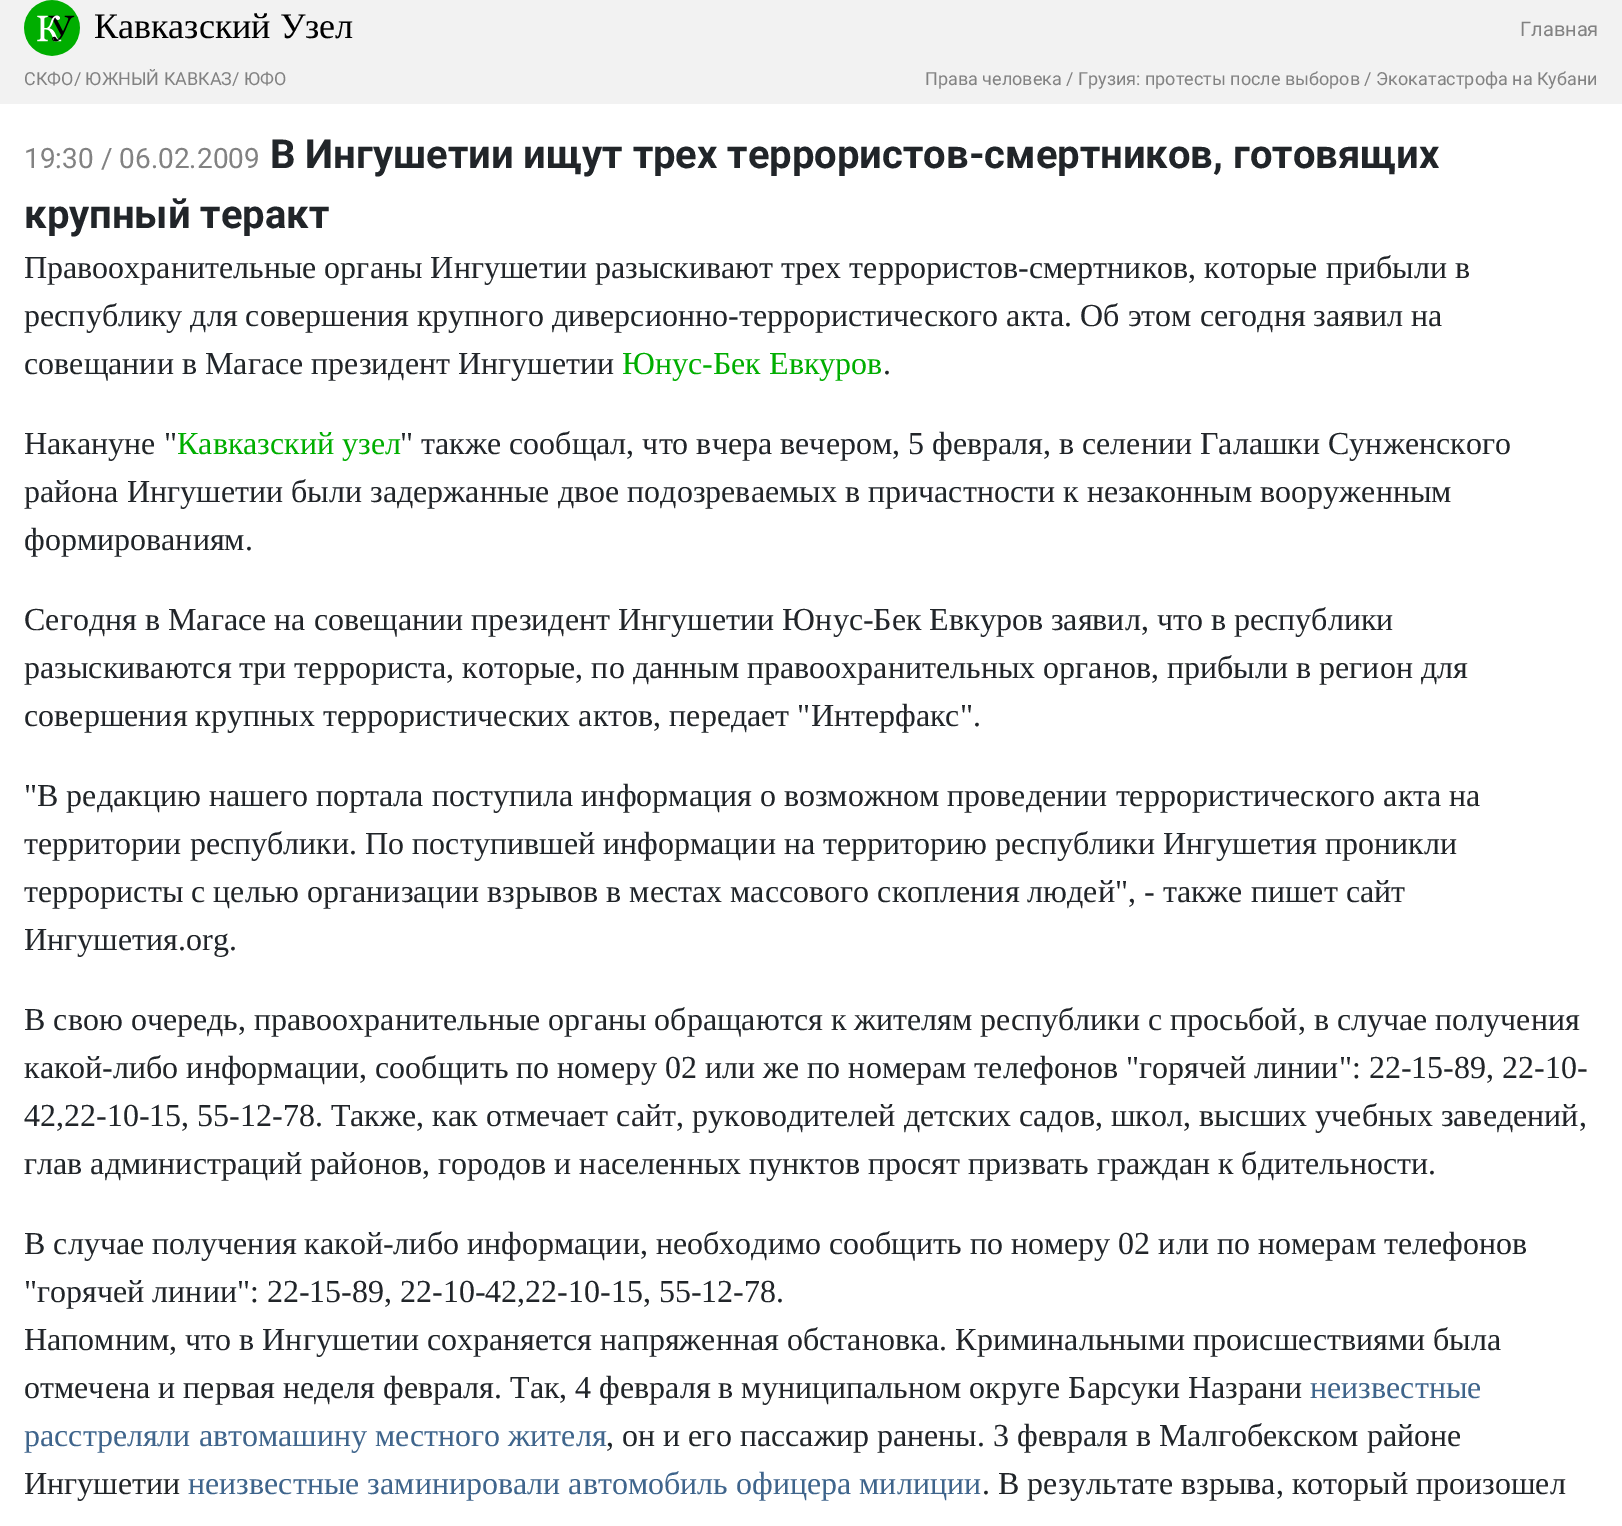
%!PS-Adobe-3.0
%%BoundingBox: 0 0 1622 1526
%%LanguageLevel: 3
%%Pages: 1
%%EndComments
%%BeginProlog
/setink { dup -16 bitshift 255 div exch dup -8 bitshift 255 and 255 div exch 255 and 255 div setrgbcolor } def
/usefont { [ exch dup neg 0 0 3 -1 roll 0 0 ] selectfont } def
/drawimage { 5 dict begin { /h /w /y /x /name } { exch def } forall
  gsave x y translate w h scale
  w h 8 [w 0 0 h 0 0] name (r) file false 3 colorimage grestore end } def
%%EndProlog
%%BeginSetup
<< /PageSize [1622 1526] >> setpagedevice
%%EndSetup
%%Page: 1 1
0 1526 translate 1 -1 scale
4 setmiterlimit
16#FFFFFF setink
0 0 1622 1526 rectfill
16#F2F2F2 setink
0 0 1622 104 rectfill
(img1.raw) 24 0 56 56 drawimage
/LiberationSerif-Regular 36 usefont
16#000000 setink
94 38 moveto (Кавказский Узел) show
/Roboto-Regular 20 usefont
16#828282 setink
1520 36 moveto (Главная) show
/Roboto-Regular 18 usefont
24 85 moveto (СКФО/ ЮЖНЫЙ КАВКАЗ/ ЮФО) show
925 85 moveto (Права человека / Грузия: протесты после выборов / Экокатастрофа на Кубани) show
/Roboto-Regular 28 usefont
24 168 moveto (19:30 / 06.02.2009) show
/Roboto-Bold 40 usefont
16#212529 setink
270 168 moveto (В Ингушетии ищут трех террористов-смертников, готовящих) show
24 228 moveto (крупный теракт) show
/LiberationSerif-Regular 32 usefont
[
    [(Правоохранительные органы Ингушетии разыскивают трех террористов-смертников, которые прибыли в) 24 278]
    [(республику для совершения крупного диверсионно-террористического акта. Об этом сегодня заявил на) 24 326]
    [(совещании в Магасе президент Ингушетии) 24 374]
] { aload pop moveto show } forall
16#00AE00 setink
622 374 moveto (Юнус-Бек Евкуров) show
16#212529 setink
883 374 moveto (.) show
24 454 moveto (Накануне ") show
16#00AE00 setink
177 454 moveto (Кавказский узел) show
16#212529 setink
[
    [(" также сообщал, что вчера вечером, 5 февраля, в селении Галашки Сунженского) 400 454]
    [(района Ингушетии были задержанные двое подозреваемых в причастности к незаконным вооруженным) 24 502]
    [(формированиям.) 24 550]
    [(Сегодня в Магасе на совещании президент Ингушетии Юнус-Бек Евкуров заявил, что в республики) 24 630]
    [(разыскиваются три террориста, которые, по данным правоохранительных органов, прибыли в регион для) 24 678]
    [(совершения крупных террористических актов, передает "Интерфакс".) 24 726]
    [("В редакцию нашего портала поступила информация о возможном проведении террористического акта на) 24 806]
    [(территории республики. По поступившей информации на территорию республики Ингушетия проникли) 24 854]
    [(террористы с целью организации взрывов в местах массового скопления людей", - также пишет сайт) 24 902]
    [(Ингушетия.org.) 24 950]
    [(В свою очередь, правоохранительные органы обращаются к жителям республики с просьбой, в случае получения) 24 1030]
    [(какой-либо информации, сообщить по номеру 02 или же по номерам телефонов "горячей линии": 22-15-89, 22-10-) 24 1078]
    [(42,22-10-15, 55-12-78. Также, как отмечает сайт, руководителей детских садов, школ, высших учебных заведений,) 24 1126]
    [(глав администраций районов, городов и населенных пунктов просят призвать граждан к бдительности.) 24 1174]
    [(В случае получения какой-либо информации, необходимо сообщить по номеру 02 или по номерам телефонов) 24 1254]
    [("горячей линии": 22-15-89, 22-10-42,22-10-15, 55-12-78.) 24 1302]
    [(Напомним, что в Ингушетии сохраняется напряженная обстановка. Криминальными происшествиями была) 24 1350]
    [(отмечена и первая неделя февраля. Так, 4 февраля в муниципальном округе Барсуки Назрани) 24 1398]
] { aload pop moveto show } forall
16#3F658C setink
1310 1398 moveto (неизвестные) show
24 1446 moveto (расстреляли автомашину местного жителя) show
16#212529 setink
606 1446 moveto (, он и его пассажир ранены. 3 февраля в Малгобекском районе) show
24 1494 moveto (Ингушетии) show
16#3F658C setink
188 1494 moveto (неизвестные заминировали автомобиль офицера милиции) show
16#212529 setink
982 1494 moveto (. В результате взрыва, который произошел) show
showpage
%%EOF
